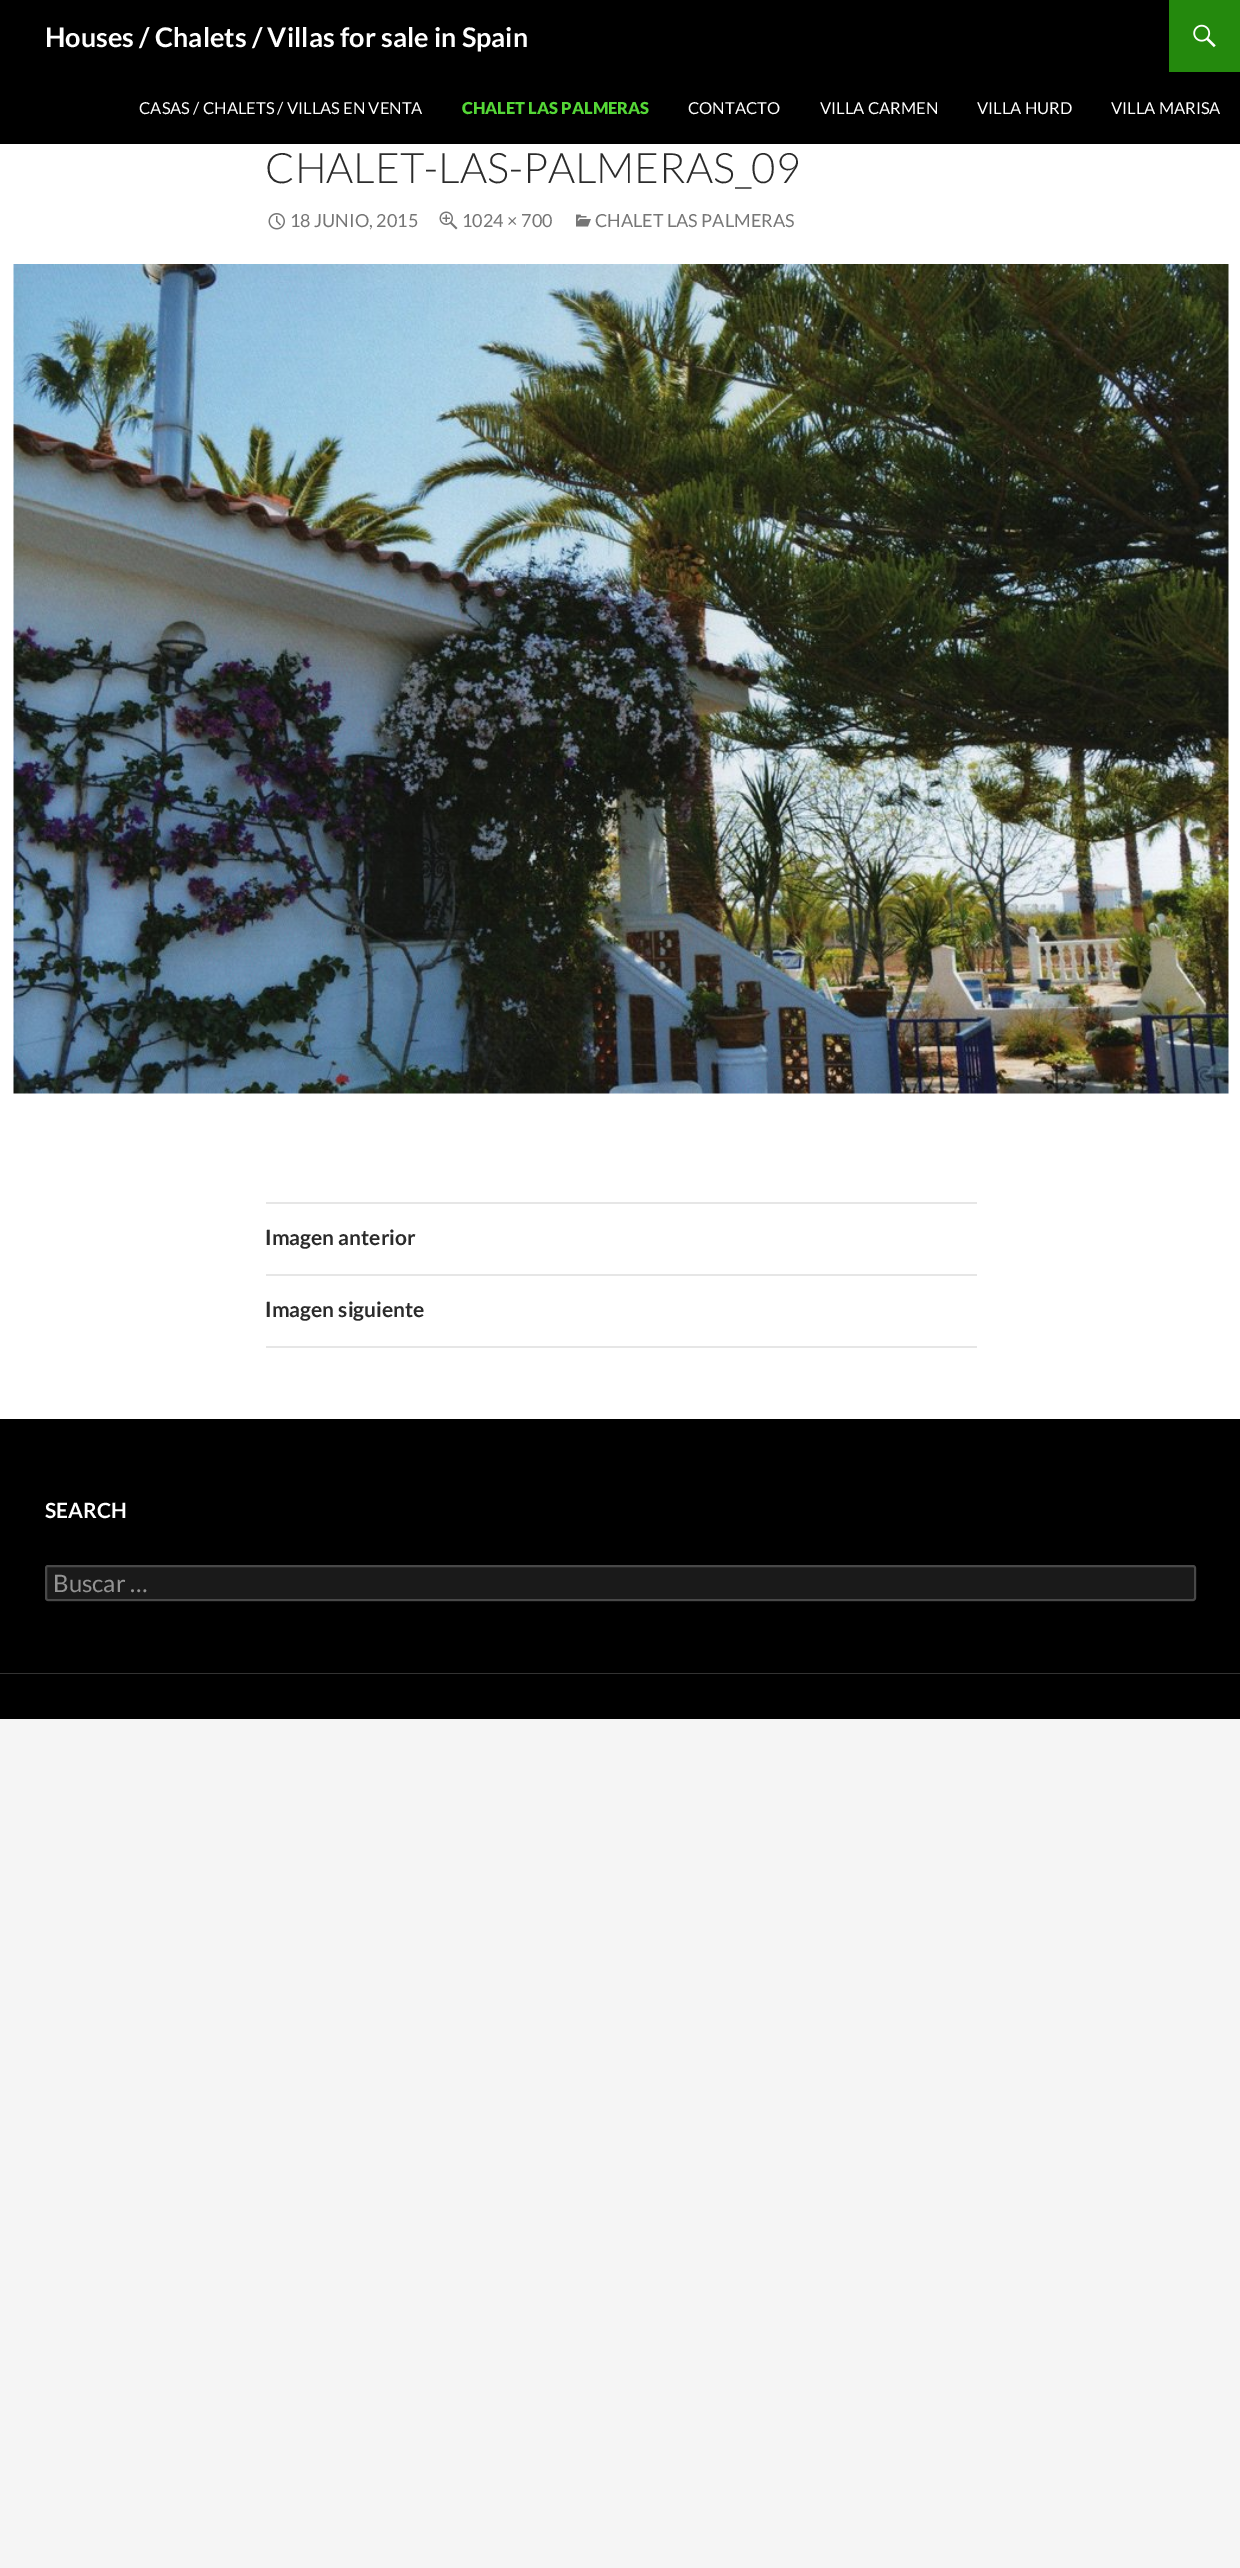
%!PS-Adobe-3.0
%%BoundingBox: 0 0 1240 2568
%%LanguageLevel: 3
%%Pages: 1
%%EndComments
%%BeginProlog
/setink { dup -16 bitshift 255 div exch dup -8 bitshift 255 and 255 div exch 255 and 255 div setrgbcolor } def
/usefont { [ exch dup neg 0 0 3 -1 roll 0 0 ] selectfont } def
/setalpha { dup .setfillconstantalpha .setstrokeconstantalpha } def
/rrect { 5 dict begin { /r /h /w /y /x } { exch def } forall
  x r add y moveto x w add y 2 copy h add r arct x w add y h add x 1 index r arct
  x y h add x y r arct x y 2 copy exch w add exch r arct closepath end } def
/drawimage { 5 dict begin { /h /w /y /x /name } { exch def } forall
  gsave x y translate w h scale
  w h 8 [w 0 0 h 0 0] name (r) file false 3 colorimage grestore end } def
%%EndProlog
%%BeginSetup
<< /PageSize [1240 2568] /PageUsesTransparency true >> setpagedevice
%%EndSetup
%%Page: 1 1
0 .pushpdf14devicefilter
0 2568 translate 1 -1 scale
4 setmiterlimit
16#F5F5F5 setink
0 0 1240 2568 rectfill
16#FFFFFF setink
0 144 1240 1275 rectfill
16#000000 setink
0 0 1240 144 rectfill
/Lato-Bold 27 usefont
16#FFFFFF setink
45 47 moveto (Houses / Chalets / Villas for sale in Spain) show
16#24890D setink
1169 0 71 72 rectfill
(img1.raw) 1193 24 23 24 drawimage
/Lato-Regular 16.5 usefont
16#FFFFFF setink
139 114 moveto (CASAS / CHALETS / VILLAS EN VENTA) show
/Lato-Black 16.5 usefont
16#55D737 setink
462 114 moveto (CHALET LAS PALMERAS) show
/Lato-Regular 16.5 usefont
16#FFFFFF setink
[
    [(CONTACTO) 688 114]
    [(VILLA CARMEN) 820 114]
    [(VILLA HURD) 977 114]
    [(VILLA MARISA) 1111 114]
] { aload pop moveto show } forall
/Lato-Light 42 usefont
16#2B2B2B setink
265 183 moveto (CHALET-LAS-PALMERAS_09) show
(img2.raw) 268 213 17 17 drawimage
/Lato-Regular 18 usefont
16#767676 setink
290 227 moveto (18 JUNIO, 2015) show
(img3.raw) 439 211 19 19 drawimage
462 227 moveto (1024 × 700) show
(img4.raw) 576 214 15 13 drawimage
595 227 moveto (CHALET LAS PALMERAS) show
(img5.raw) 13 264 1216 830 drawimage
16#E6E6E6 setink
266 1202 711 2 rectfill
266 1274 711 2 rectfill
/Lato-Bold 21 usefont
16#2B2B2B setink
265 1245 moveto (Imagen anterior) show
16#E6E6E6 setink
266 1346 711 2 rectfill
16#2B2B2B setink
265 1317 moveto (Imagen siguiente) show
16#000000 setink
0 1419 1240 254 rectfill
16#333333 setink
0 1673 1240 1 rectfill
16#FFFFFF setink
45 1518 moveto (SEARCH) show
16#1A1A1A setink
45 1565 1151 36 3 rrect fill
0.2 setalpha
16#FFFFFF setink
2 setlinewidth
46 1566 1149 34 2 rrect stroke
/Lato-Regular 24 usefont
1 setalpha
16#939393 setink
53 1592 moveto (Buscar …) show
16#000000 setink
0 1674 1240 45 rectfill
.poppdf14devicefilter showpage
%%EOF
